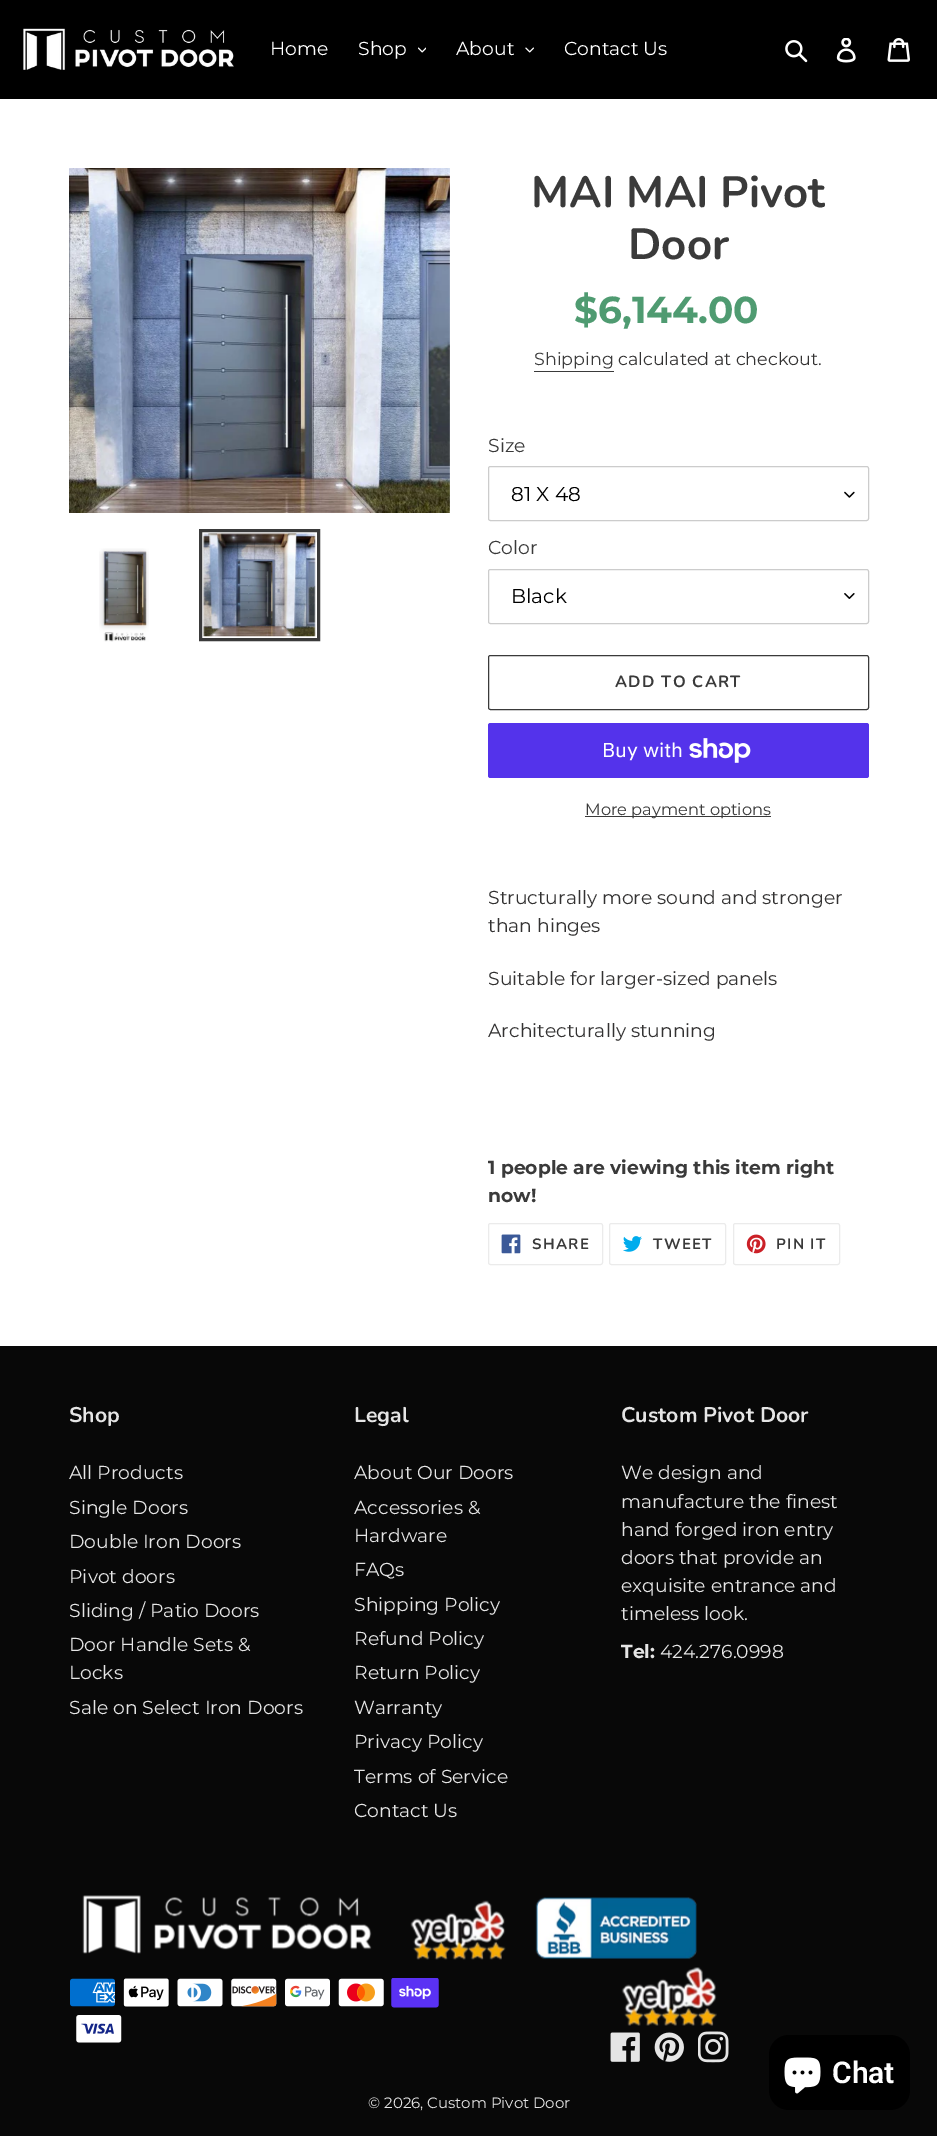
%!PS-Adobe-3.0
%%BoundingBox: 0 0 937 2136
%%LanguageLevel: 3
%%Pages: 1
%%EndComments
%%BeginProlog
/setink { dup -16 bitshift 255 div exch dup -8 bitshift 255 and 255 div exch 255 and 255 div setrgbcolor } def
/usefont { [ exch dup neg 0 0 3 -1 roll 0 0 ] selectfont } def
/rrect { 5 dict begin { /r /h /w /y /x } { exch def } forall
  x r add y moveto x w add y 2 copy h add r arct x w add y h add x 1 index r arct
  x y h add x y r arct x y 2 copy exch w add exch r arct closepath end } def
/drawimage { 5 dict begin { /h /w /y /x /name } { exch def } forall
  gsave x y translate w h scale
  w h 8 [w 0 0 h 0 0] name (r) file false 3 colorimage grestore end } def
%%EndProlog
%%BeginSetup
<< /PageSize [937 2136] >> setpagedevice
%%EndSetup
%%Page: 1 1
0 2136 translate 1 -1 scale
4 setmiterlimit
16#FFFFFF setink
0 0 937 2136 rectfill
16#000000 setink
0 0 937 99 rectfill
(img1.raw) 23 28 211 42 drawimage
/Montserrat-Regular 18.75 usefont
16#FFFFFF setink
270 55 moveto (Home) show
358 55 moveto (Shop) show
(img2.raw) 418 47 8 6 drawimage
456 55 moveto (About) show
(img3.raw) 525 47 9 6 drawimage
564 55 moveto (Contact Us) show
(img4.raw) 785 40 23 23 drawimage
(img5.raw) 836 38 20 25 drawimage
(img6.raw) 887 38 23 24 drawimage
(img7.raw) 69 168 381 345 drawimage
(img8.raw) 99 548 50 94 drawimage
16#3A3A3A setink
3 setlinewidth
200.5 530.5 118 109 rectstroke
(img9.raw) 203 533 113 104 drawimage
/Nunito-Bold 43.75 usefont
531 207 moveto (MAI MAI Pivot) show
628 259 moveto (Door) show
/Montserrat-Bold 37.5 usefont
16#4F9B71 setink
574 323 moveto ($6,144.00) show
/Montserrat-Regular 17.5 usefont
16#3A3A3A setink
534 365 moveto (Shipping) show
534 371 80 1 rectfill
16#333232 setink
618 365 moveto (calculated at checkout.) show
/Montserrat-Regular 18.75 usefont
16#3A3A3A setink
488 452 moveto (Size) show
(img10.raw) 844 491 11 7 drawimage
16#CCCCCC setink
1 setlinewidth
488.5 466.5 380 54 2 rrect stroke
/Montserrat-Regular 20 usefont
16#000000 setink
511 501 moveto (81 X 48) show
/Montserrat-Regular 18.75 usefont
16#3A3A3A setink
488 554 moveto (Color) show
(img11.raw) 844 593 11 6 drawimage
16#CCCCCC setink
488.5 569.5 380 54 2 rrect stroke
/Montserrat-Regular 20 usefont
16#000000 setink
511 603 moveto (Black) show
16#3A3A3A setink
488.5 655.5 380 54 2 rrect stroke
/Nunito-Bold 16.25 usefont
615 687 moveto 1.25 0 (ADD TO CART) ashow
16#5433EB setink
488 723 381 55 2.5 rrect fill
/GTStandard-Regular 20 usefont
16#FFFFFF setink
602 757 moveto (Buy with) show
(img12.raw) 689 738 62 25 drawimage
16#3A3A3A setink
585 816 186 1 rectfill
/Montserrat-Regular 16.25 usefont
585 815 moveto (More payment options) show
/Montserrat-Regular 18.75 usefont
16#333232 setink
[
    [(Structurally more sound and stronger) 488 904]
    [(than hinges) 488 932]
    [(Suitable for larger-sized panels) 488 985]
    [(Architecturally stunning) 488 1037]
] { aload pop moveto show } forall
/Montserrat-Bold 18.75 usefont
16#3A3A3A setink
488 1174 moveto (1 people are viewing this item right) show
488 1202 moveto (now!) show
16#EBEBEB setink
488.5 1223.5 114 41 2 rrect stroke
(img13.raw) 501 1234 20 20 drawimage
/Nunito-Bold 15 usefont
16#3A3A3A setink
532 1249 moveto 1.25 0 (SHARE) ashow
16#EBEBEB setink
609.5 1223.5 116 41 2 rrect stroke
(img14.raw) 623 1236 19 16 drawimage
16#3A3A3A setink
653 1249 moveto 1.25 0 (TWEET) ashow
16#EBEBEB setink
733.5 1223.5 106 41 2 rrect stroke
(img15.raw) 746 1234 20 20 drawimage
16#3A3A3A setink
776 1249 moveto 1.25 0 (PIN IT) ashow
16#080808 setink
0 1346 937 790 rectfill
/Nunito-Bold 21.25 usefont
16#E5E5E5 setink
69 1422 moveto (Shop) show
/Montserrat-Regular 18.75 usefont
[
    [(All Products) 69 1479]
    [(Single Doors) 69 1514]
    [(Double Iron Doors) 69 1548]
    [(Pivot doors) 69 1583]
    [(Sliding / Patio Doors) 69 1617]
    [(Door Handle Sets &) 69 1651]
    [(Locks) 69 1679]
    [(Sale on Select Iron Doors) 69 1714]
] { aload pop moveto show } forall
/Nunito-Bold 21.25 usefont
354 1422 moveto (Legal) show
/Montserrat-Regular 18.75 usefont
[
    [(About Our Doors) 354 1479]
    [(Accessories &) 354 1514]
    [(Hardware) 354 1542]
    [(FAQs) 354 1576]
    [(Shipping Policy) 354 1611]
    [(Refund Policy) 354 1645]
    [(Return Policy) 354 1679]
    [(Warranty) 354 1714]
    [(Privacy Policy) 354 1748]
    [(Terms of Service) 354 1783]
    [(Contact Us) 354 1817]
] { aload pop moveto show } forall
/Nunito-Bold 21.25 usefont
621 1422 moveto (Custom Pivot Door) show
/Montserrat-Regular 18.75 usefont
[
    [(We design and) 621 1479]
    [(manufacture the finest) 621 1508]
    [(hand forged iron entry) 621 1536]
    [(doors that provide an) 621 1564]
    [(exquisite entrance and) 621 1592]
    [(timeless look.) 621 1620]
] { aload pop moveto show } forall
/Montserrat-Bold 18.75 usefont
621 1658 moveto (Tel:) show
/Montserrat-Regular 18.75 usefont
660 1658 moveto (424.276.0998) show
(img16.raw) 82 1895 290 59 drawimage
(img17.raw) 410 1900 96 60 drawimage
(img18.raw) 535 1897 162 62 drawimage
(img19.raw) 70 1978 45 29 drawimage
(img20.raw) 123 1978 47 30 drawimage
(img21.raw) 177 1978 46 29 drawimage
(img22.raw) 231 1978 46 29 drawimage
(img23.raw) 285 1978 45 29 drawimage
(img24.raw) 338 1978 46 29 drawimage
(img25.raw) 391 1978 48 30 drawimage
(img26.raw) 76 2015 46 28 drawimage
(img27.raw) 621 1967 96 59 drawimage
(img28.raw) 610 2032 30 30 drawimage
(img29.raw) 654 2032 30 30 drawimage
(img30.raw) 698 2031 31 32 drawimage
/Montserrat-Regular 15 usefont
368 2108 moveto (© 2026, Custom Pivot Door) show
16#000000 setink
769 2035 141 75 20 rrect fill
(img31.raw) 784 2057 37 37 drawimage
/Roboto-SemiBold 30 usefont
16#FFFFFF setink
832 2083 moveto (Chat) show
showpage
%%EOF
